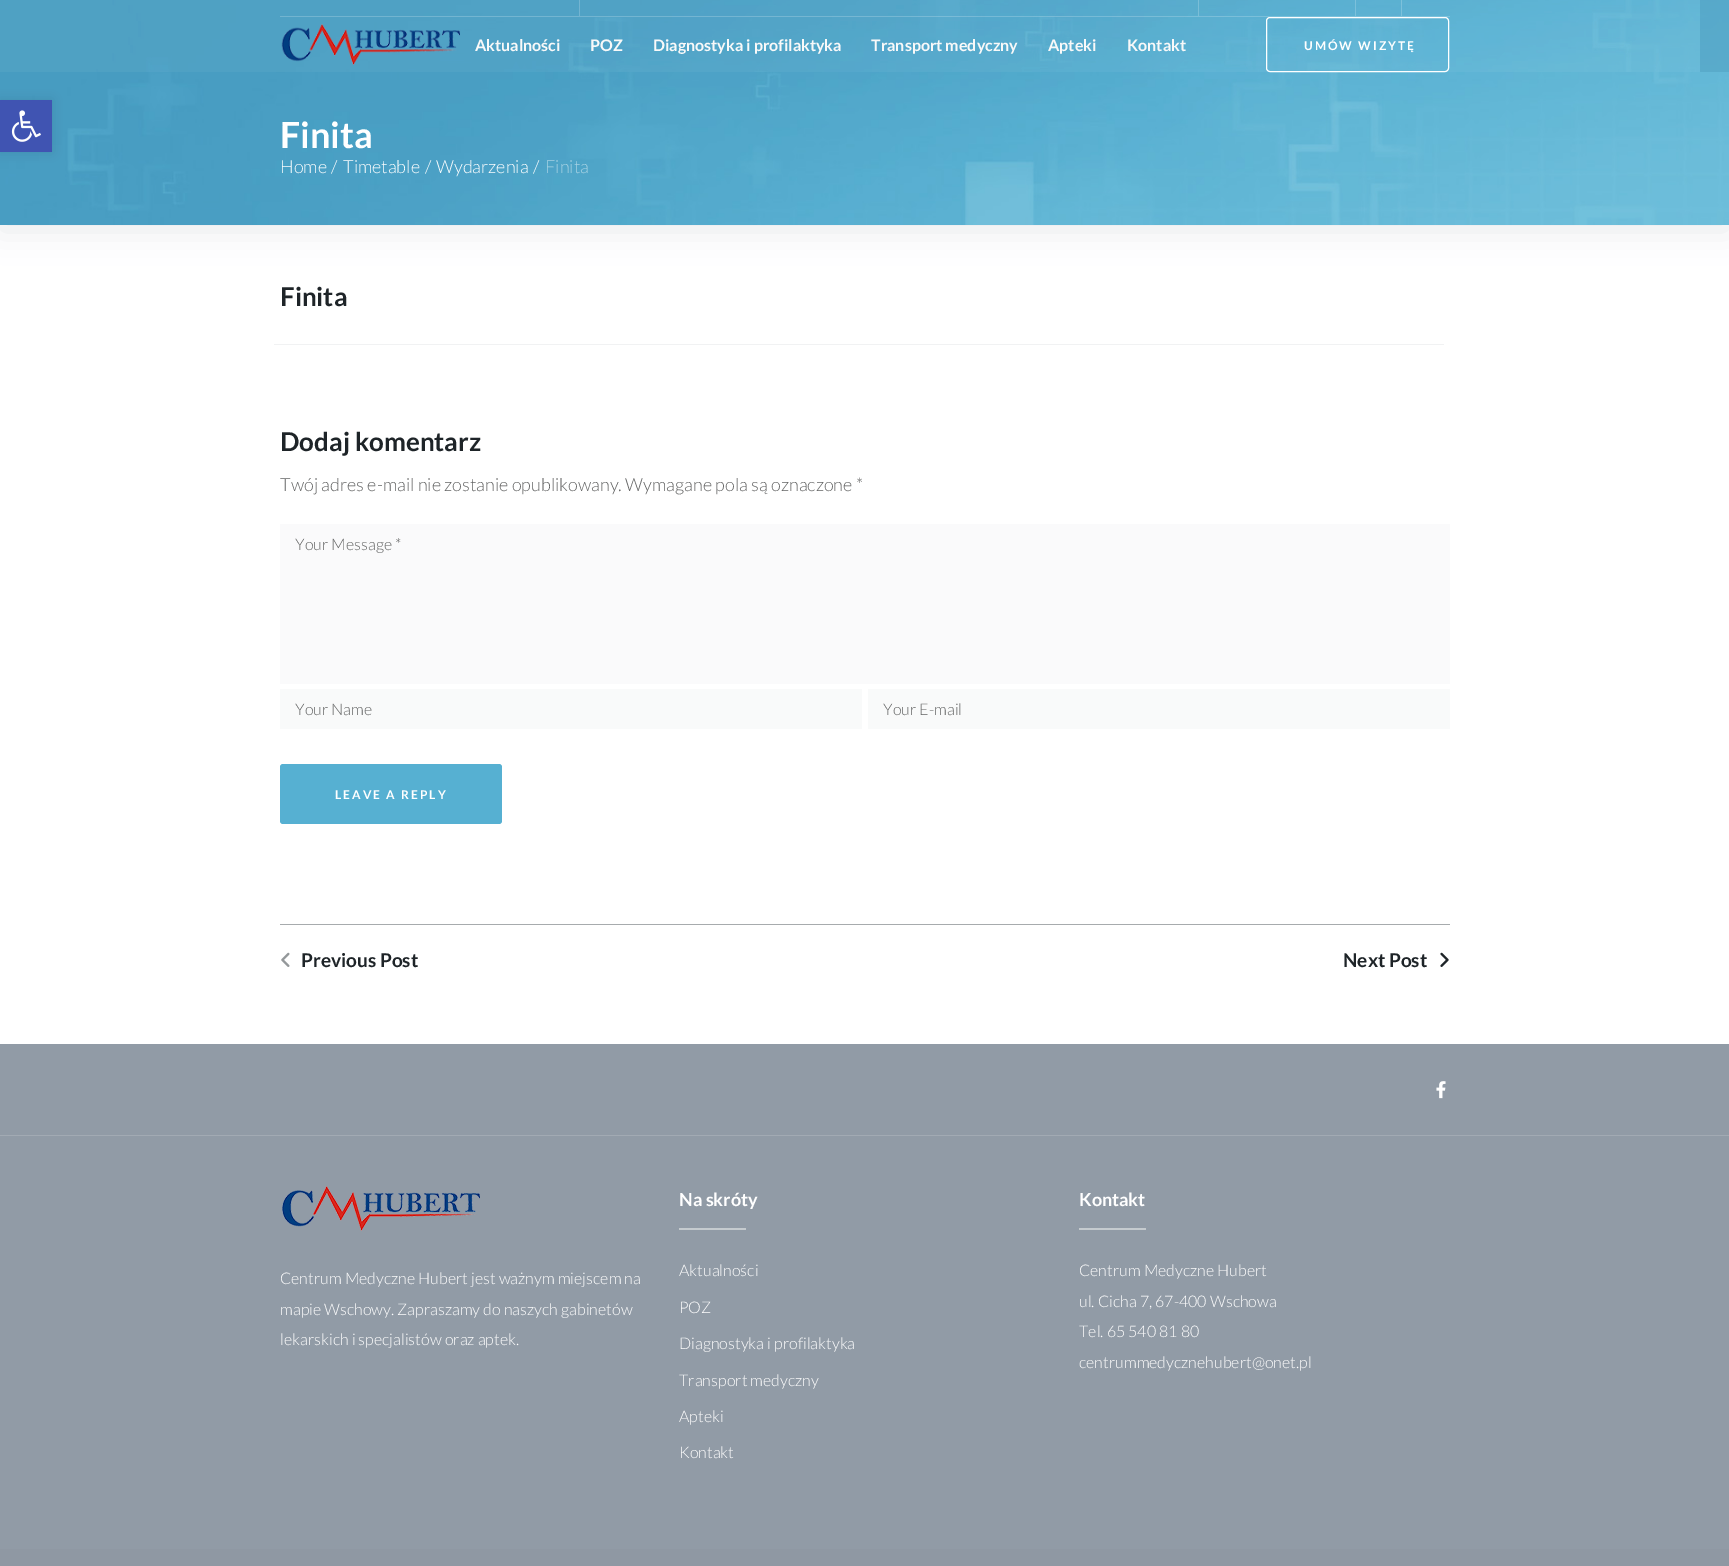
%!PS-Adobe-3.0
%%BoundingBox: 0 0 1729 1566
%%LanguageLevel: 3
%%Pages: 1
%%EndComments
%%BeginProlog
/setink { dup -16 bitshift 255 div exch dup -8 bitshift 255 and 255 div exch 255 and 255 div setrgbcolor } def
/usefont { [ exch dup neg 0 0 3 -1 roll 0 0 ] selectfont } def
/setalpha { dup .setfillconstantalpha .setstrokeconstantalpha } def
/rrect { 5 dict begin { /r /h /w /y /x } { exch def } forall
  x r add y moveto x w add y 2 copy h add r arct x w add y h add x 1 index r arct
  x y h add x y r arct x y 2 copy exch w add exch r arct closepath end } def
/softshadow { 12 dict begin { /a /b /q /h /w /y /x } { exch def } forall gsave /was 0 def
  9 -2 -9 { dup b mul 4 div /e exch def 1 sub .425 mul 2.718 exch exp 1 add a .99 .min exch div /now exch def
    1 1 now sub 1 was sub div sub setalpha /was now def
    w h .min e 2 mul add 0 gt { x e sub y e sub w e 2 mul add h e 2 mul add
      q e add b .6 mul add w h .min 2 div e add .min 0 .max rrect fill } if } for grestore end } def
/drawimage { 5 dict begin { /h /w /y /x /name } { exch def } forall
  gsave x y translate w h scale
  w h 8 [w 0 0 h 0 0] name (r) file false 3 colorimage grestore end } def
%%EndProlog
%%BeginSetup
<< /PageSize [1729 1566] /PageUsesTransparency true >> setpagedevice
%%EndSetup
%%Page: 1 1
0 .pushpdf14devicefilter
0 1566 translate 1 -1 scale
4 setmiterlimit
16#FFFFFF setink
0 0 1729 1566 rectfill
16#677A8D setink
0 -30 1729 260 0 16 0.17 softshadow
(img2.raw) 0 0 1729 225 drawimage
16#000000 setink
0 100 52 52 0 5 0.1 softshadow
16#4054B2 setink
0 100 52 52 rectfill
(img1.raw) 11 110 30 32 drawimage
0.1 setalpha
16#FFFFFF setink
0 0 1729 72 rectfill
1 setalpha
(img3.raw) 0 0 1729 72 drawimage
0.2 setalpha
[
    [280 16 1170 1 16#FFFFFF]
] { aload pop setink rectfill } forall
1 setalpha
[
    [579 0 1 16 16#73B4D1]
    [1198 0 1 16 16#7ABED7]
] { aload pop setink rectfill } forall
0.2 setalpha
[
    [1355 0 1 16 16#FFFFFF]
    [1401 0 1 16 16#FFFFFF]
] { aload pop setink rectfill } forall
1 setalpha
(img4.raw) 281 24 179 41 drawimage
/Lato-Bold 16 usefont
16#F9F9F9 setink
[
    [(Aktualności) 475 51]
    [(POZ) 590 51]
    [(Diagnostyka i profilaktyka) 653 51]
    [(Transport medyczny) 871 51]
    [(Apteki) 1048 51]
    [(Kontakt) 1127 51]
] { aload pop moveto show } forall
16#FFFFFF setink
1266.5 17.5 182 54 3.5 rrect stroke
/Lato-Bold 12 usefont
1304 50 moveto 2 0 (UMÓW WIZYTĘ) ashow
/Lato-Bold 36 usefont
280 148 moveto (Finita) show
/Lato-Light 18 usefont
[
    [(Home) 280 173]
    [(/) 331 173]
    [(Timetable) 343 173]
    [(/) 425 173]
    [(Wydarzenia) 436 173]
    [(/) 533 173]
] { aload pop moveto show } forall
16#A7D2E3 setink
545 173 moveto (Finita) show
/Lato-Bold 26 usefont
16#1E2428 setink
280 306 moveto (Finita) show
16#F1F2F3 setink
274 344 1170 1 rectfill
16#1E2428 setink
280 451 moveto (Dodaj komentarz) show
/Lato-Light 18 usefont
16#616262 setink
280 491 moveto (Twój adres e-mail nie zostanie opublikowany. Wymagane pola są oznaczone *) show
16#FAFAFB setink
280 524 1170 160 rectfill
/Lato-Light 16 usefont
16#616262 setink
295 550 moveto (Your Message *) show
16#F9FAFA setink
280 689 582 40 rectfill
16#616262 setink
295 715 moveto (Your Name) show
16#F9FAFA setink
868 689 582 40 rectfill
16#616262 setink
883 715 moveto (Your E-mail) show
16#56B0D2 setink
280 764 222 60 3 rrect fill
/Lato-Bold 12 usefont
16#FFFFFF setink
335 799 moveto 2 0 (LEAVE A REPLY) ashow
16#A7ABAD setink
280 924 1170 1 rectfill
(img5.raw) 281 952 9 15 drawimage
/Lato-Bold 19 usefont
16#1E2428 setink
301 967 moveto (Previous Post) show
1343 967 moveto (Next Post) show
(img6.raw) 1440 952 9 15 drawimage
16#919BA6 setink
0 1044 1729 505 rectfill
16#A2AAB3 setink
0 1135 1729 1 rectfill
(img7.raw) 1436 1081 10 18 drawimage
(img8.raw) 282 1186 198 45 drawimage
/Lato-Light 16 usefont
16#FFFFFF setink
[
    [(Centrum Medyczne Hubert jest ważnym miejscem na) 280 1284]
    [(mapie Wschowy. Zapraszamy do naszych gabinetów) 280 1315]
    [(lekarskich i specjalistów oraz aptek.) 280 1345]
] { aload pop moveto show } forall
/Lato-Bold 18 usefont
679 1206 moveto (Na skróty) show
16#C5CBCF setink
679 1228 67 2 rectfill
/Lato-Light 16 usefont
16#FFFFFF setink
[
    [(Aktualności) 679 1276]
    [(POZ) 679 1313]
    [(Diagnostyka i profilaktyka) 679 1349]
    [(Transport medyczny) 679 1386]
    [(Apteki) 679 1422]
    [(Kontakt) 679 1458]
] { aload pop moveto show } forall
/Lato-Bold 18 usefont
1079 1206 moveto (Kontakt) show
16#C5CBCF setink
1079 1228 67 2 rectfill
/Lato-Light 16 usefont
16#FFFFFF setink
[
    [(Centrum Medyczne Hubert) 1079 1276]
    [(ul. Cicha 7, 67-400 Wschowa) 1079 1307]
    [(Tel. 65 540 81 80) 1079 1337]
    [(centrummedycznehubert@onet.pl) 1079 1368]
] { aload pop moveto show } forall
16#8F98A3 setink
0 1549 1729 17 rectfill
.poppdf14devicefilter showpage
%%EOF
